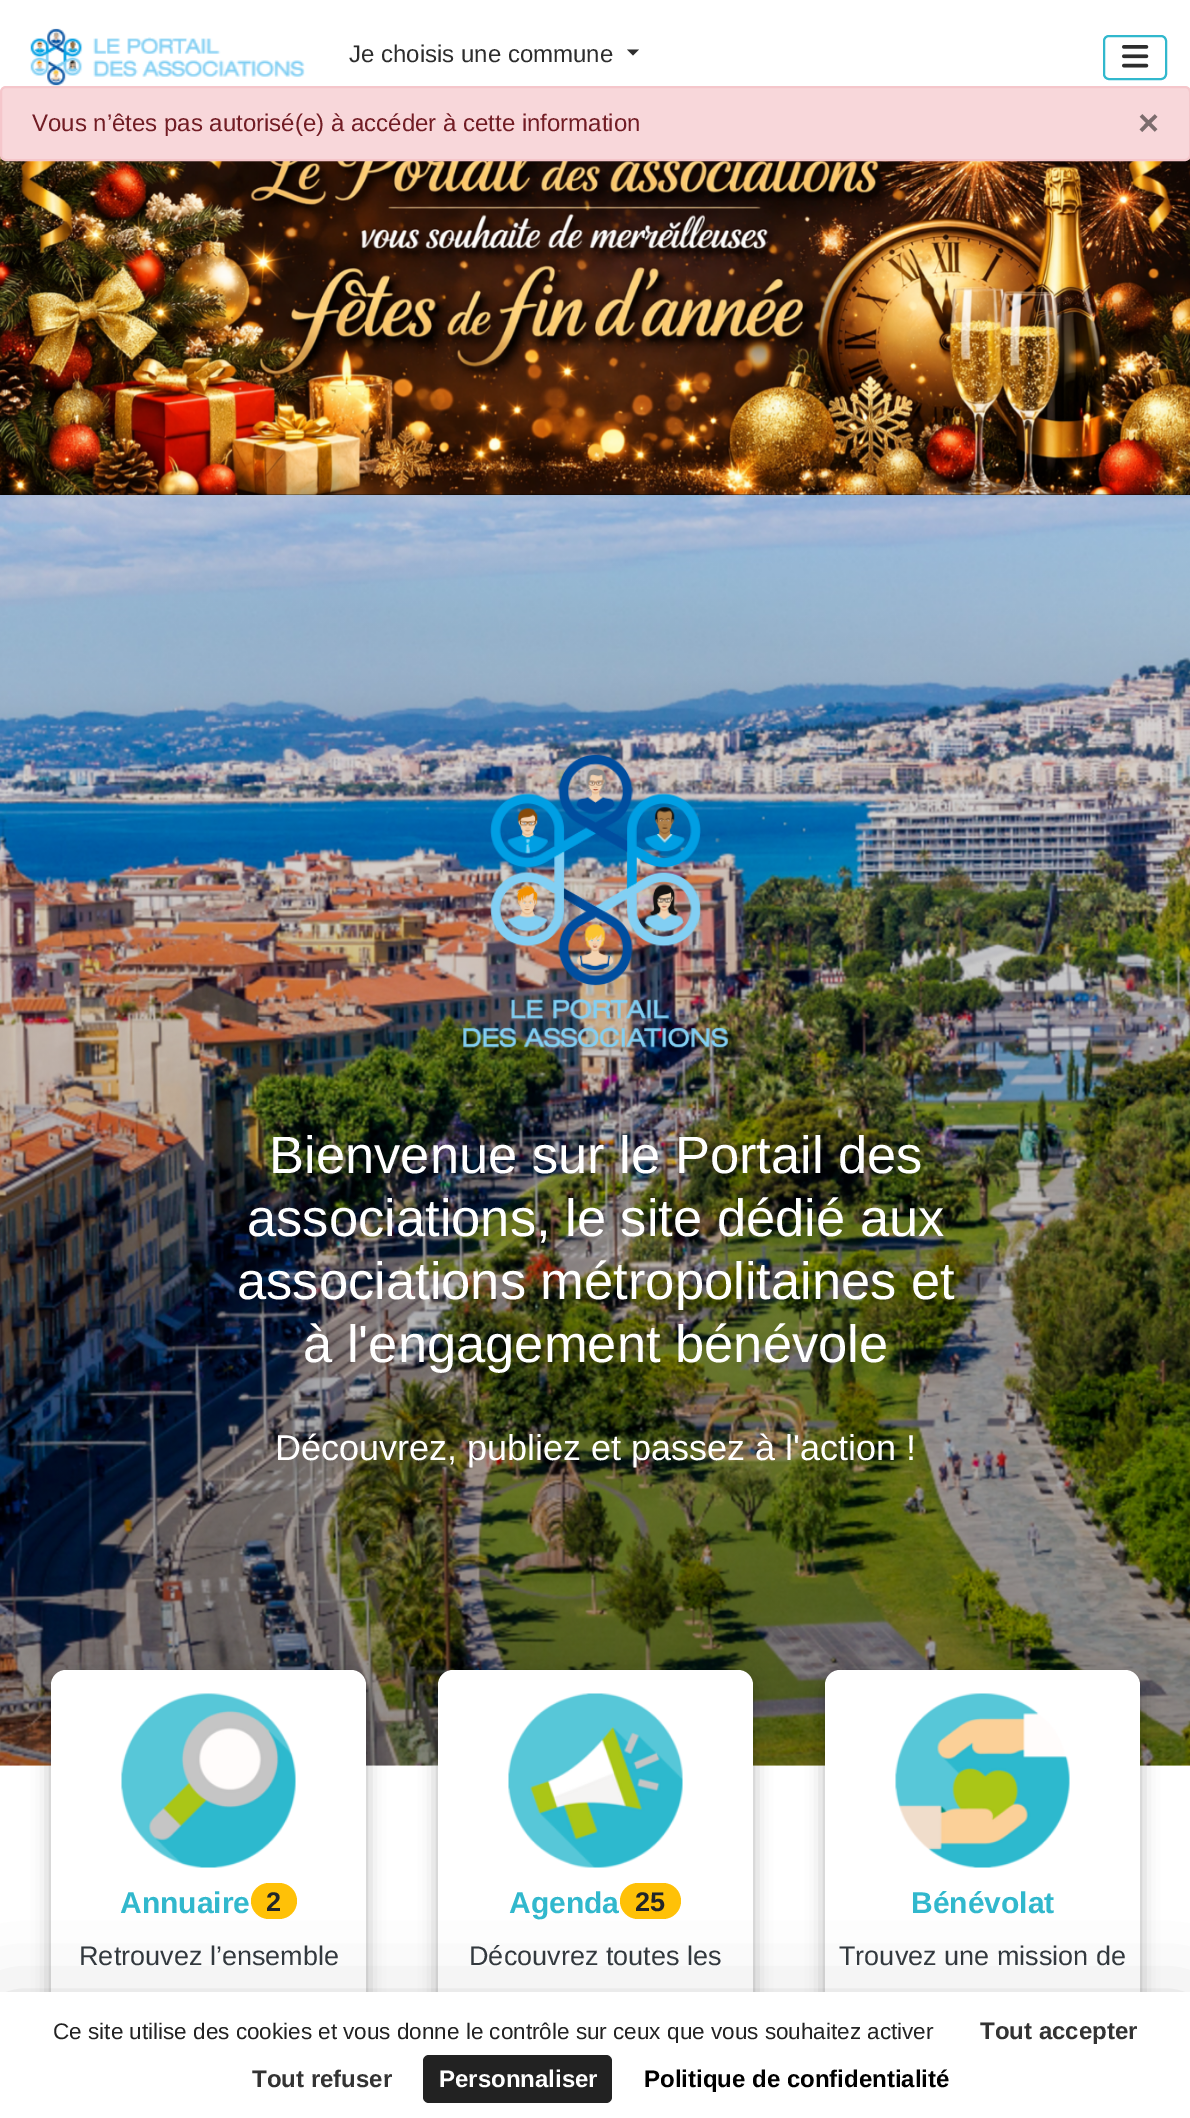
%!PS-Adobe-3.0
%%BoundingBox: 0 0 1190 2118
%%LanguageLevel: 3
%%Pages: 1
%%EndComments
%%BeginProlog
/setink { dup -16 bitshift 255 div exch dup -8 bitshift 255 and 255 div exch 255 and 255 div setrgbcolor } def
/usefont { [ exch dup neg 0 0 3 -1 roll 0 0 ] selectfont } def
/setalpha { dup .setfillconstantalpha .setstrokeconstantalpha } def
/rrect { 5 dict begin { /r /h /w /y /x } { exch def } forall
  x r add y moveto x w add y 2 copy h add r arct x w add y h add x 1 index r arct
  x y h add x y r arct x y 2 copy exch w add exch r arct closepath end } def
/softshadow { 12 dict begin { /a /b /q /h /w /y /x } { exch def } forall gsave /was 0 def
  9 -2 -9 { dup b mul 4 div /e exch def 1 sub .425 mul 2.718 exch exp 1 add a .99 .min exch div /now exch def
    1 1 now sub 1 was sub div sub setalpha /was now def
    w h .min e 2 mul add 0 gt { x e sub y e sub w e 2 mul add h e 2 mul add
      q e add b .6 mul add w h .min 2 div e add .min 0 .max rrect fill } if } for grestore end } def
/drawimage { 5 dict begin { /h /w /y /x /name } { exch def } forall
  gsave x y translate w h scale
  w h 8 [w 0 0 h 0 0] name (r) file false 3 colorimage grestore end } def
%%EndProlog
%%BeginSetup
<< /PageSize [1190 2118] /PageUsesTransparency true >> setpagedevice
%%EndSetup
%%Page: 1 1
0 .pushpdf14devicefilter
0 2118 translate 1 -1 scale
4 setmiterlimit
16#FFFFFF setink
0 0 1190 2118 rectfill
(img1.raw) 30 28 275 58 drawimage
/LiberationSans-Regular 24 usefont
16#2D2D2D setink
349 62 moveto (Je choisis une commune) show
627 49.5 moveto 639 49.5 lineto 633 55.5 lineto closepath fill
16#31B8CD setink
2 setlinewidth
1104 36 62 43 5 rrect stroke
(img2.raw) 1122 45 27 23 drawimage
(img3.raw) 0 155 1190 340 drawimage
16#F8D7DA setink
1 87 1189 73 5 rrect gsave fill grestore
16#F5C6CB setink
stroke
16#721C24 setink
32 131 moveto (Vous n’êtes pas autorisé\(e\) à accéder à cette information) show
/LiberationSans-Bold 36 usefont
16#7C6C6D setink
1138 135 moveto (×) show
(img4.raw) 0 495 1190 1271 drawimage
(img5.raw) 463 754 265 294 drawimage
/LiberationSans-Regular 52.5 usefont
16#FFFFFF setink
[
    [(Bienvenue sur le Portail des) 269 1173]
    [(associations, le site dédié aux) 247 1236]
    [(associations métropolitaines et) 237 1299]
    [(à l'engagement bénévole) 303 1362]
] { aload pop moveto show } forall
/LiberationSans-Regular 36 usefont
275 1460 moveto (Découvrez, publiez et passez à l'action !) show
16#000000 setink
51 1676 315 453 15 9 0.3 softshadow
16#FFFFFF setink
51 1670 315 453 15 rrect fill
(img6.raw) 121 1693 175 175 drawimage
/LiberationSans-Bold 30 usefont
16#31B8CD setink
120 1913 moveto (Annuaire) show
16#FFC107 setink
251 1883 46 36 18 rrect fill
/LiberationSans-Bold 27 usefont
16#212529 setink
266 1911 moveto (2) show
/LiberationSans-Regular 27 usefont
16#343A40 setink
79 1965 moveto (Retrouvez l’ensemble) show
16#000000 setink
438 1676 315 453 15 9 0.3 softshadow
16#FFFFFF setink
438 1670 315 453 15 rrect fill
(img7.raw) 508 1693 175 175 drawimage
/LiberationSans-Bold 30 usefont
16#31B8CD setink
509 1913 moveto (Agenda) show
16#FFC107 setink
620 1883 61 36 18 rrect fill
/LiberationSans-Bold 27 usefont
16#212529 setink
635 1911 moveto (25) show
/LiberationSans-Regular 27 usefont
16#343A40 setink
469 1965 moveto (Découvrez toutes les) show
16#000000 setink
825 1676 315 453 15 9 0.3 softshadow
16#FFFFFF setink
825 1670 315 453 15 rrect fill
(img8.raw) 895 1693 175 175 drawimage
/LiberationSans-Bold 30 usefont
16#31B8CD setink
911 1913 moveto (Bénévolat) show
/LiberationSans-Regular 27 usefont
16#343A40 setink
839 1965 moveto (Trouvez une mission de) show
16#000000 setink
0 2022 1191 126 0 45 0.25 softshadow
16#FFFFFF setink
0 1992 1190 126 rectfill
gsave
38 2018 910 25 rectclip
/LiberationSans-Regular 22.5 usefont
16#222222 setink
53 2039 moveto (Ce site utilise des cookies et vous donne le contrôle sur ceux que vous souhaitez activer) show
grestore
/LiberationSans-Bold 24 usefont
16#333333 setink
980 2039 moveto (Tout accepter) show
252 2087 moveto (Tout refuser) show
16#222222 setink
423 2055 189 48 6 rrect fill
16#FFFFFF setink
439 2087 moveto (Personnaliser) show
16#000000 setink
644 2087 moveto (Politique de confidentialité) show
.poppdf14devicefilter showpage
%%EOF
